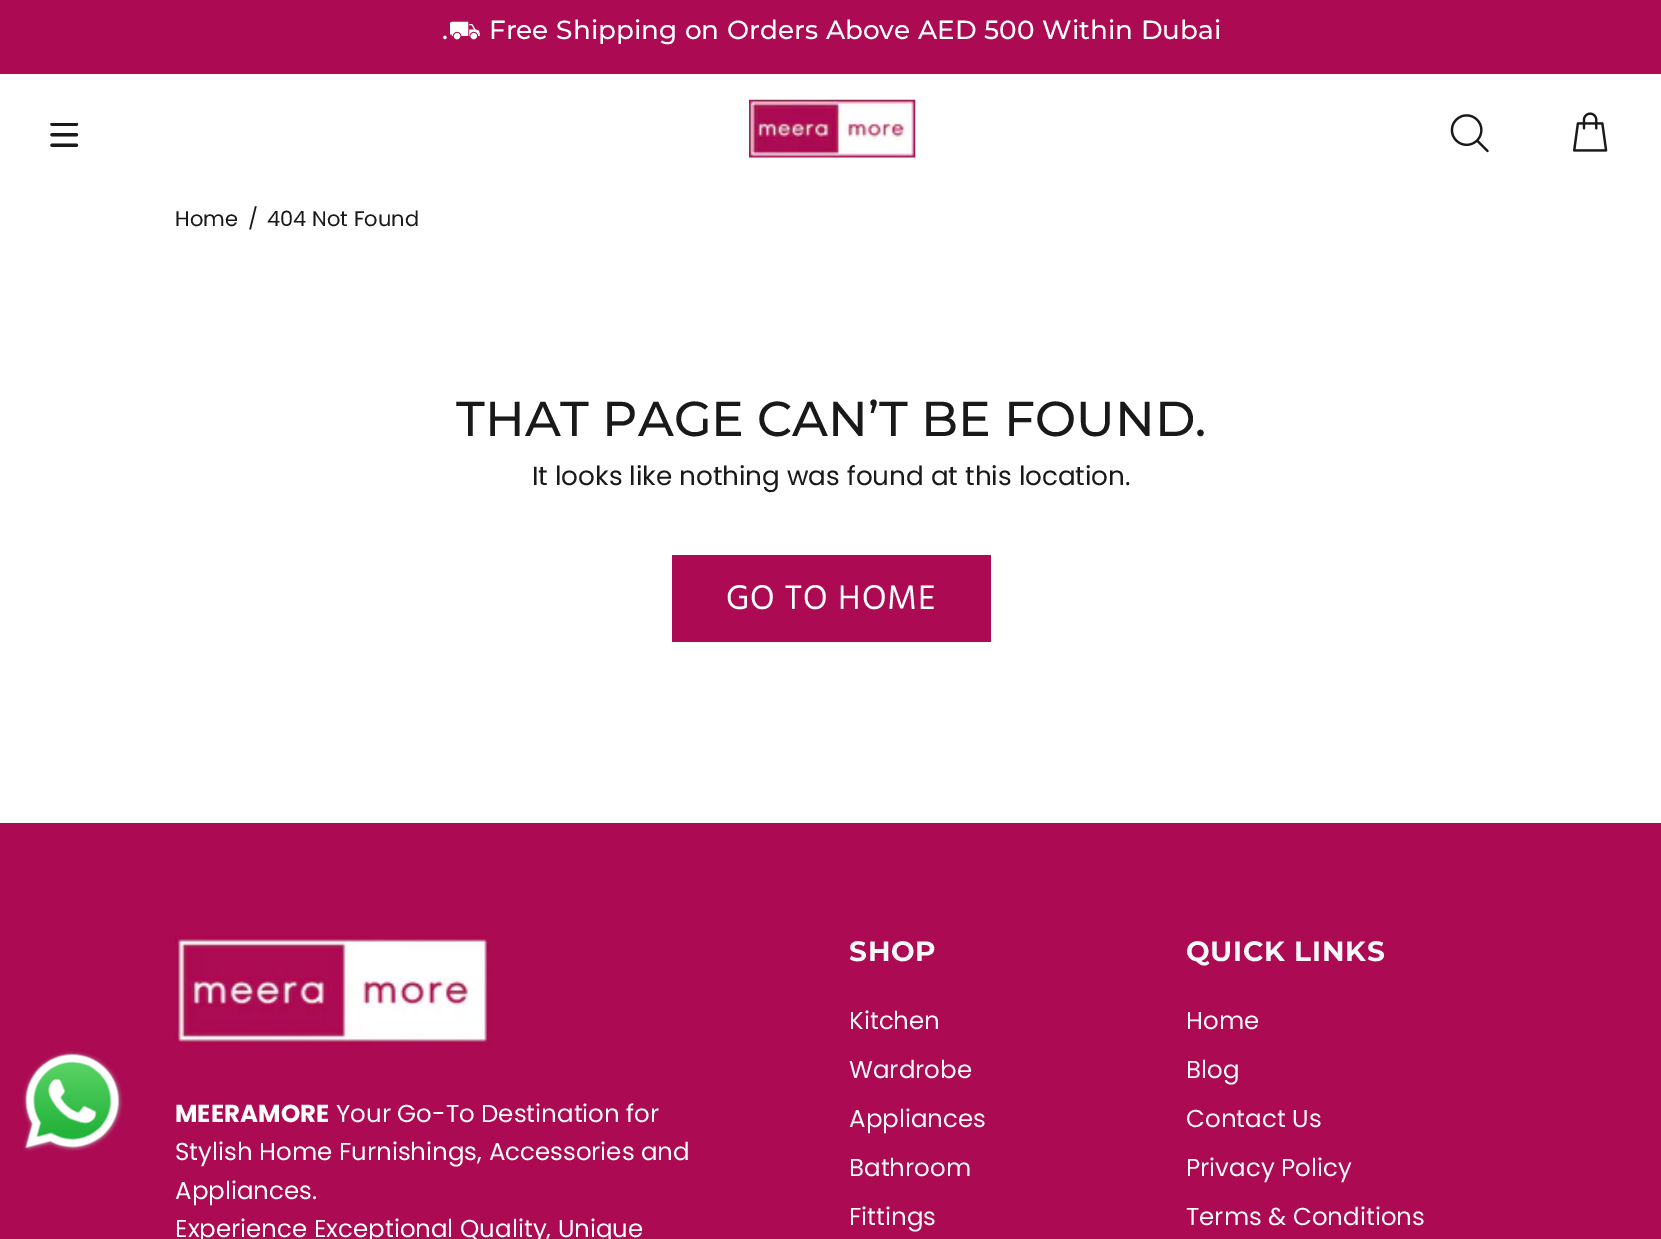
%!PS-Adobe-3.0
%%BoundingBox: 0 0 1661 1239
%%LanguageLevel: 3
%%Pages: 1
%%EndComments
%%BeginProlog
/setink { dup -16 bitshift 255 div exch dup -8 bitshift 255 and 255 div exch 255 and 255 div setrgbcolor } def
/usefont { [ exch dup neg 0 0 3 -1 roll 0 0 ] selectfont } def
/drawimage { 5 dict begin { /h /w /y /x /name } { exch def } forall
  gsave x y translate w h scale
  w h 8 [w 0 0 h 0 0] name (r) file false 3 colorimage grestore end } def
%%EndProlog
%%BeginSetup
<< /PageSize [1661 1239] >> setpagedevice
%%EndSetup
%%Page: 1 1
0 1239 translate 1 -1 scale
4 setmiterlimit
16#FFFFFF setink
0 0 1661 1239 rectfill
16#AC0A53 setink
0 0 1661 74 rectfill
/Montserrat-Medium 26.25 usefont
16#FFFFFF setink
442 39 moveto (.) show
/STIXTwoMath-Regular 26.25 usefont
448 39 moveto (⛟) show
/Montserrat-Medium 26.25 usefont
489 39 moveto 0.75 0 32 (Free Shipping on Orders Above AED 500 Within Dubai) widthshow
(img1.raw) 50 123 29 24 drawimage
(img2.raw) 749 99 167 59 drawimage
(img3.raw) 1450 114 39 39 drawimage
(img4.raw) 1573 112 35 40 drawimage
/Poppins-Regular 21 usefont
16#191919 setink
[
    [(Home) 175 226]
    [(/) 248 226]
    [(404 Not Found) 267 226]
] { aload pop moveto show } forall
/Montserrat-Medium 49 usefont
456 436 moveto (THAT PAGE CAN’T BE FOUND.) show
/Poppins-Regular 26.25 usefont
532 485 moveto (It looks like nothing was found at this location.) show
16#AC0A53 setink
672 555 319 87 rectfill
/Hind-Regular 35 usefont
16#FFFFFF setink
726 609 moveto 1 0 (GO TO HOME) ashow
16#AC0A53 setink
0 823 1661 416 rectfill
(img5.raw) 22 1051 101 101 drawimage
(img6.raw) 175 936 315 109 drawimage
/Poppins-Bold 24.5 usefont
16#FFFFFF setink
175 1122 moveto (MEERAMORE) show
/Poppins-Regular 24.5 usefont
[
    [(Your Go-To Destination for) 336 1122]
    [(Stylish Home Furnishings, Accessories and) 175 1160]
    [(Appliances.) 175 1199]
    [(Experience Exceptional Quality, Unique) 175 1237]
] { aload pop moveto show } forall
/Montserrat-Bold 28 usefont
16#F7F8FA setink
849 961 moveto 0.75 0 (SHOP) ashow
/Poppins-Regular 24.5 usefont
[
    [(Kitchen) 849 1029]
    [(Wardrobe) 849 1078]
    [(Appliances) 849 1127]
    [(Bathroom) 849 1176]
    [(Fittings) 849 1225]
] { aload pop moveto show } forall
/Montserrat-Bold 28 usefont
1186 961 moveto 0.75 0 (QUICK LINKS) ashow
/Poppins-Regular 24.5 usefont
[
    [(Home) 1186 1029]
    [(Blog) 1186 1078]
    [(Contact Us) 1186 1127]
    [(Privacy Policy) 1186 1176]
    [(Terms & Conditions) 1186 1225]
] { aload pop moveto show } forall
showpage
%%EOF
